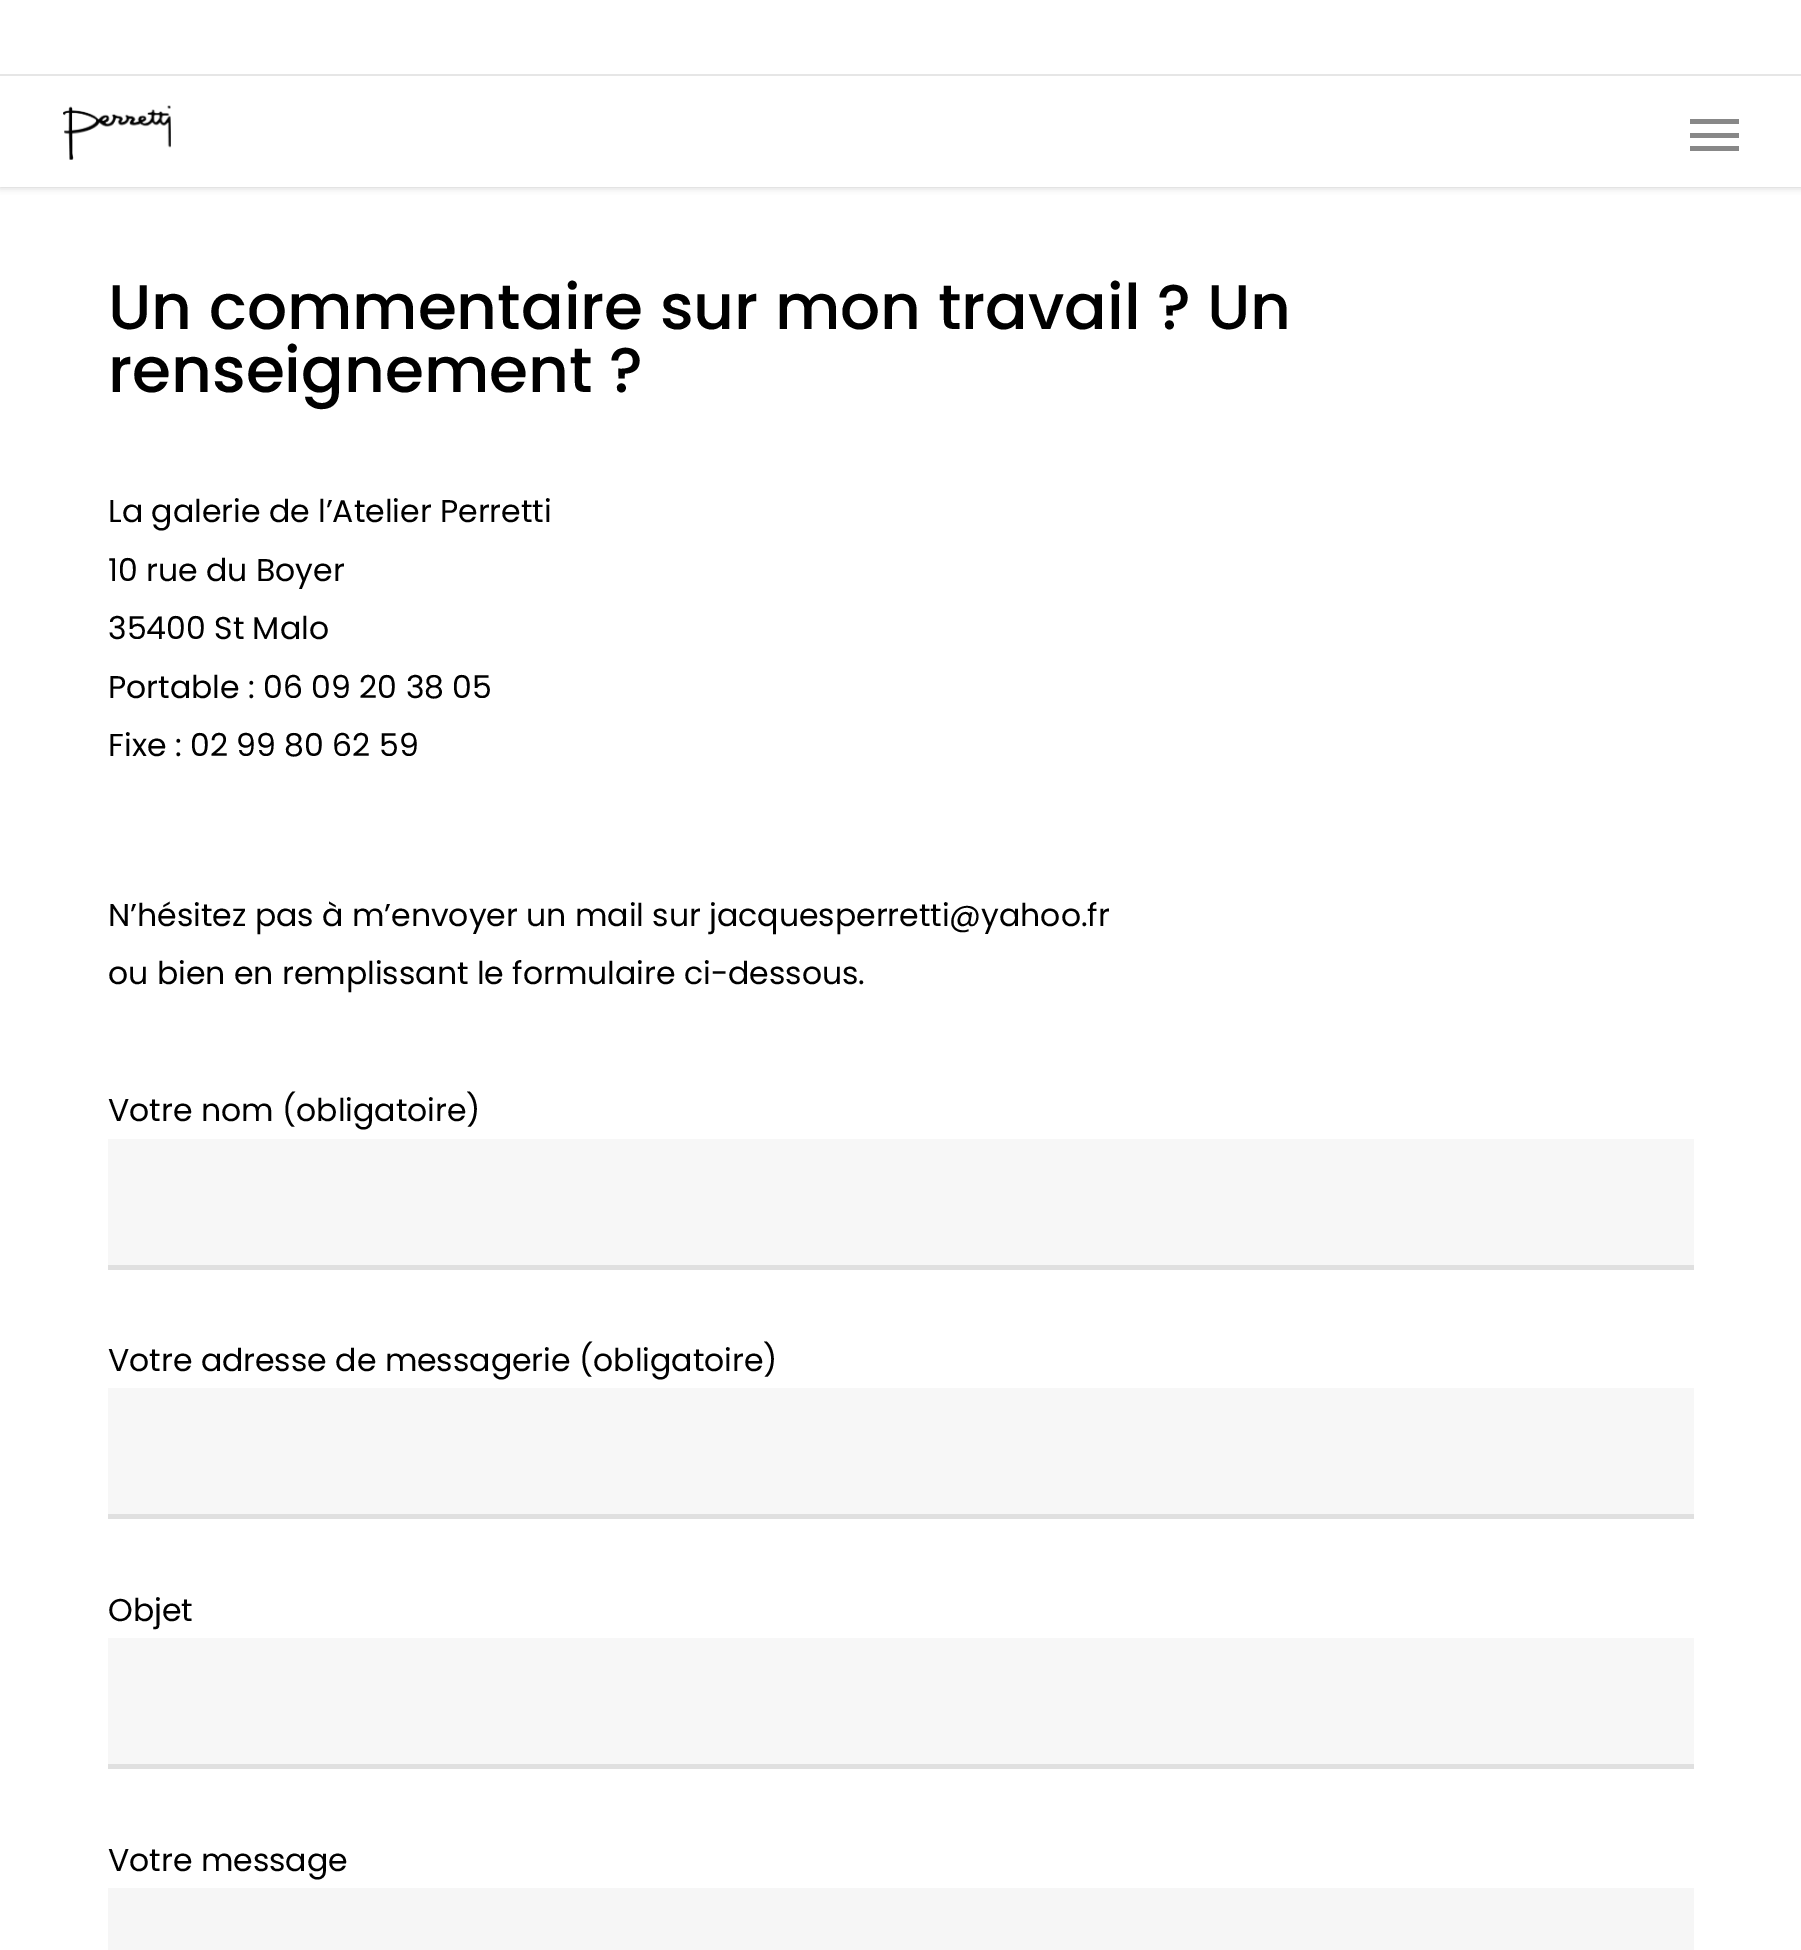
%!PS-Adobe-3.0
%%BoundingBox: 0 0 1801 1950
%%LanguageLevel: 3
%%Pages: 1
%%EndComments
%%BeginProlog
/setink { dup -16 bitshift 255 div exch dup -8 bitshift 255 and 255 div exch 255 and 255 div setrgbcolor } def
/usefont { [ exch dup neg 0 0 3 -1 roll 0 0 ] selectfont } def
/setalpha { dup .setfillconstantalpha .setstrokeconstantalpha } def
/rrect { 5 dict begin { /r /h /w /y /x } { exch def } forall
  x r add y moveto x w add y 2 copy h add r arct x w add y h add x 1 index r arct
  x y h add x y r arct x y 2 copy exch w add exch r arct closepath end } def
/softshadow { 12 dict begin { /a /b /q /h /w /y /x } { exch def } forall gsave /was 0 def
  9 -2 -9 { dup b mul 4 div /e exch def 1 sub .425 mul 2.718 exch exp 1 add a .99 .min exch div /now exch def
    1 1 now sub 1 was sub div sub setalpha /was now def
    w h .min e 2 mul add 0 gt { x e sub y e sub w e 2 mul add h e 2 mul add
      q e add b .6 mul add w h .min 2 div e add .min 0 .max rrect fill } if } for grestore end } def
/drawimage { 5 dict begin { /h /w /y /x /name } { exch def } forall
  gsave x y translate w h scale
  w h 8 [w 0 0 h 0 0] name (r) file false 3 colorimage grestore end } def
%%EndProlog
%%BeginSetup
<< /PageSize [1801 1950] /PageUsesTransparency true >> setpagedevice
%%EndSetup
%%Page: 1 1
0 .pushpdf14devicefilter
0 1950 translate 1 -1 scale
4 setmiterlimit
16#FFFFFF setink
0 0 1801 1950 rectfill
16#000000 setink
0 0 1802 187 0 3.5 0.22 softshadow
16#FFFFFF setink
0 0 1801 187 rectfill
16#E6E6E6 setink
0 74 1801 2 rectfill
(img1.raw) 63 105 108 55 drawimage
[
    [1690 119 49 5 16#888888]
    [1690 146 49 5 16#888888]
    [1690 133 49 5 16#888888]
] { aload pop setink rectfill } forall
/Poppins-Medium 63 usefont
16#000000 setink
108 329 moveto (Un commentaire sur mon travail ? Un) show
108 392 moveto (renseignement ?) show
/Poppins-Regular 31.5 usefont
[
    [(La galerie de l’Atelier Perretti) 108 522]
    [(10 rue du Boyer) 108 581]
    [(35400 St Malo) 108 639]
    [(Portable : 06 09 20 38 05) 108 698]
    [(Fixe : 02 99 80 62 59) 108 756]
    [(N’hésitez pas à m’envoyer un mail sur jacquesperretti@yahoo.fr) 108 926]
    [(ou bien en remplissant le formulaire ci-dessous.) 108 984]
    [(Votre nom \(obligatoire\)) 108 1121]
] { aload pop moveto show } forall
16#F7F7F7 setink
108 1139 1586 126 rectfill
16#E0E0E0 setink
108 1265 1586 5 rectfill
16#000000 setink
108 1371 moveto (Votre adresse de messagerie \(obligatoire\)) show
16#F7F7F7 setink
108 1388 1586 126 rectfill
16#E0E0E0 setink
108 1514 1586 5 rectfill
16#000000 setink
108 1621 moveto (Objet) show
16#F7F7F7 setink
108 1638 1586 126 rectfill
16#E0E0E0 setink
108 1764 1586 5 rectfill
16#000000 setink
108 1871 moveto (Votre message) show
16#F6F6F6 setink
108 1888 1586 62 rectfill
.poppdf14devicefilter showpage
%%EOF
